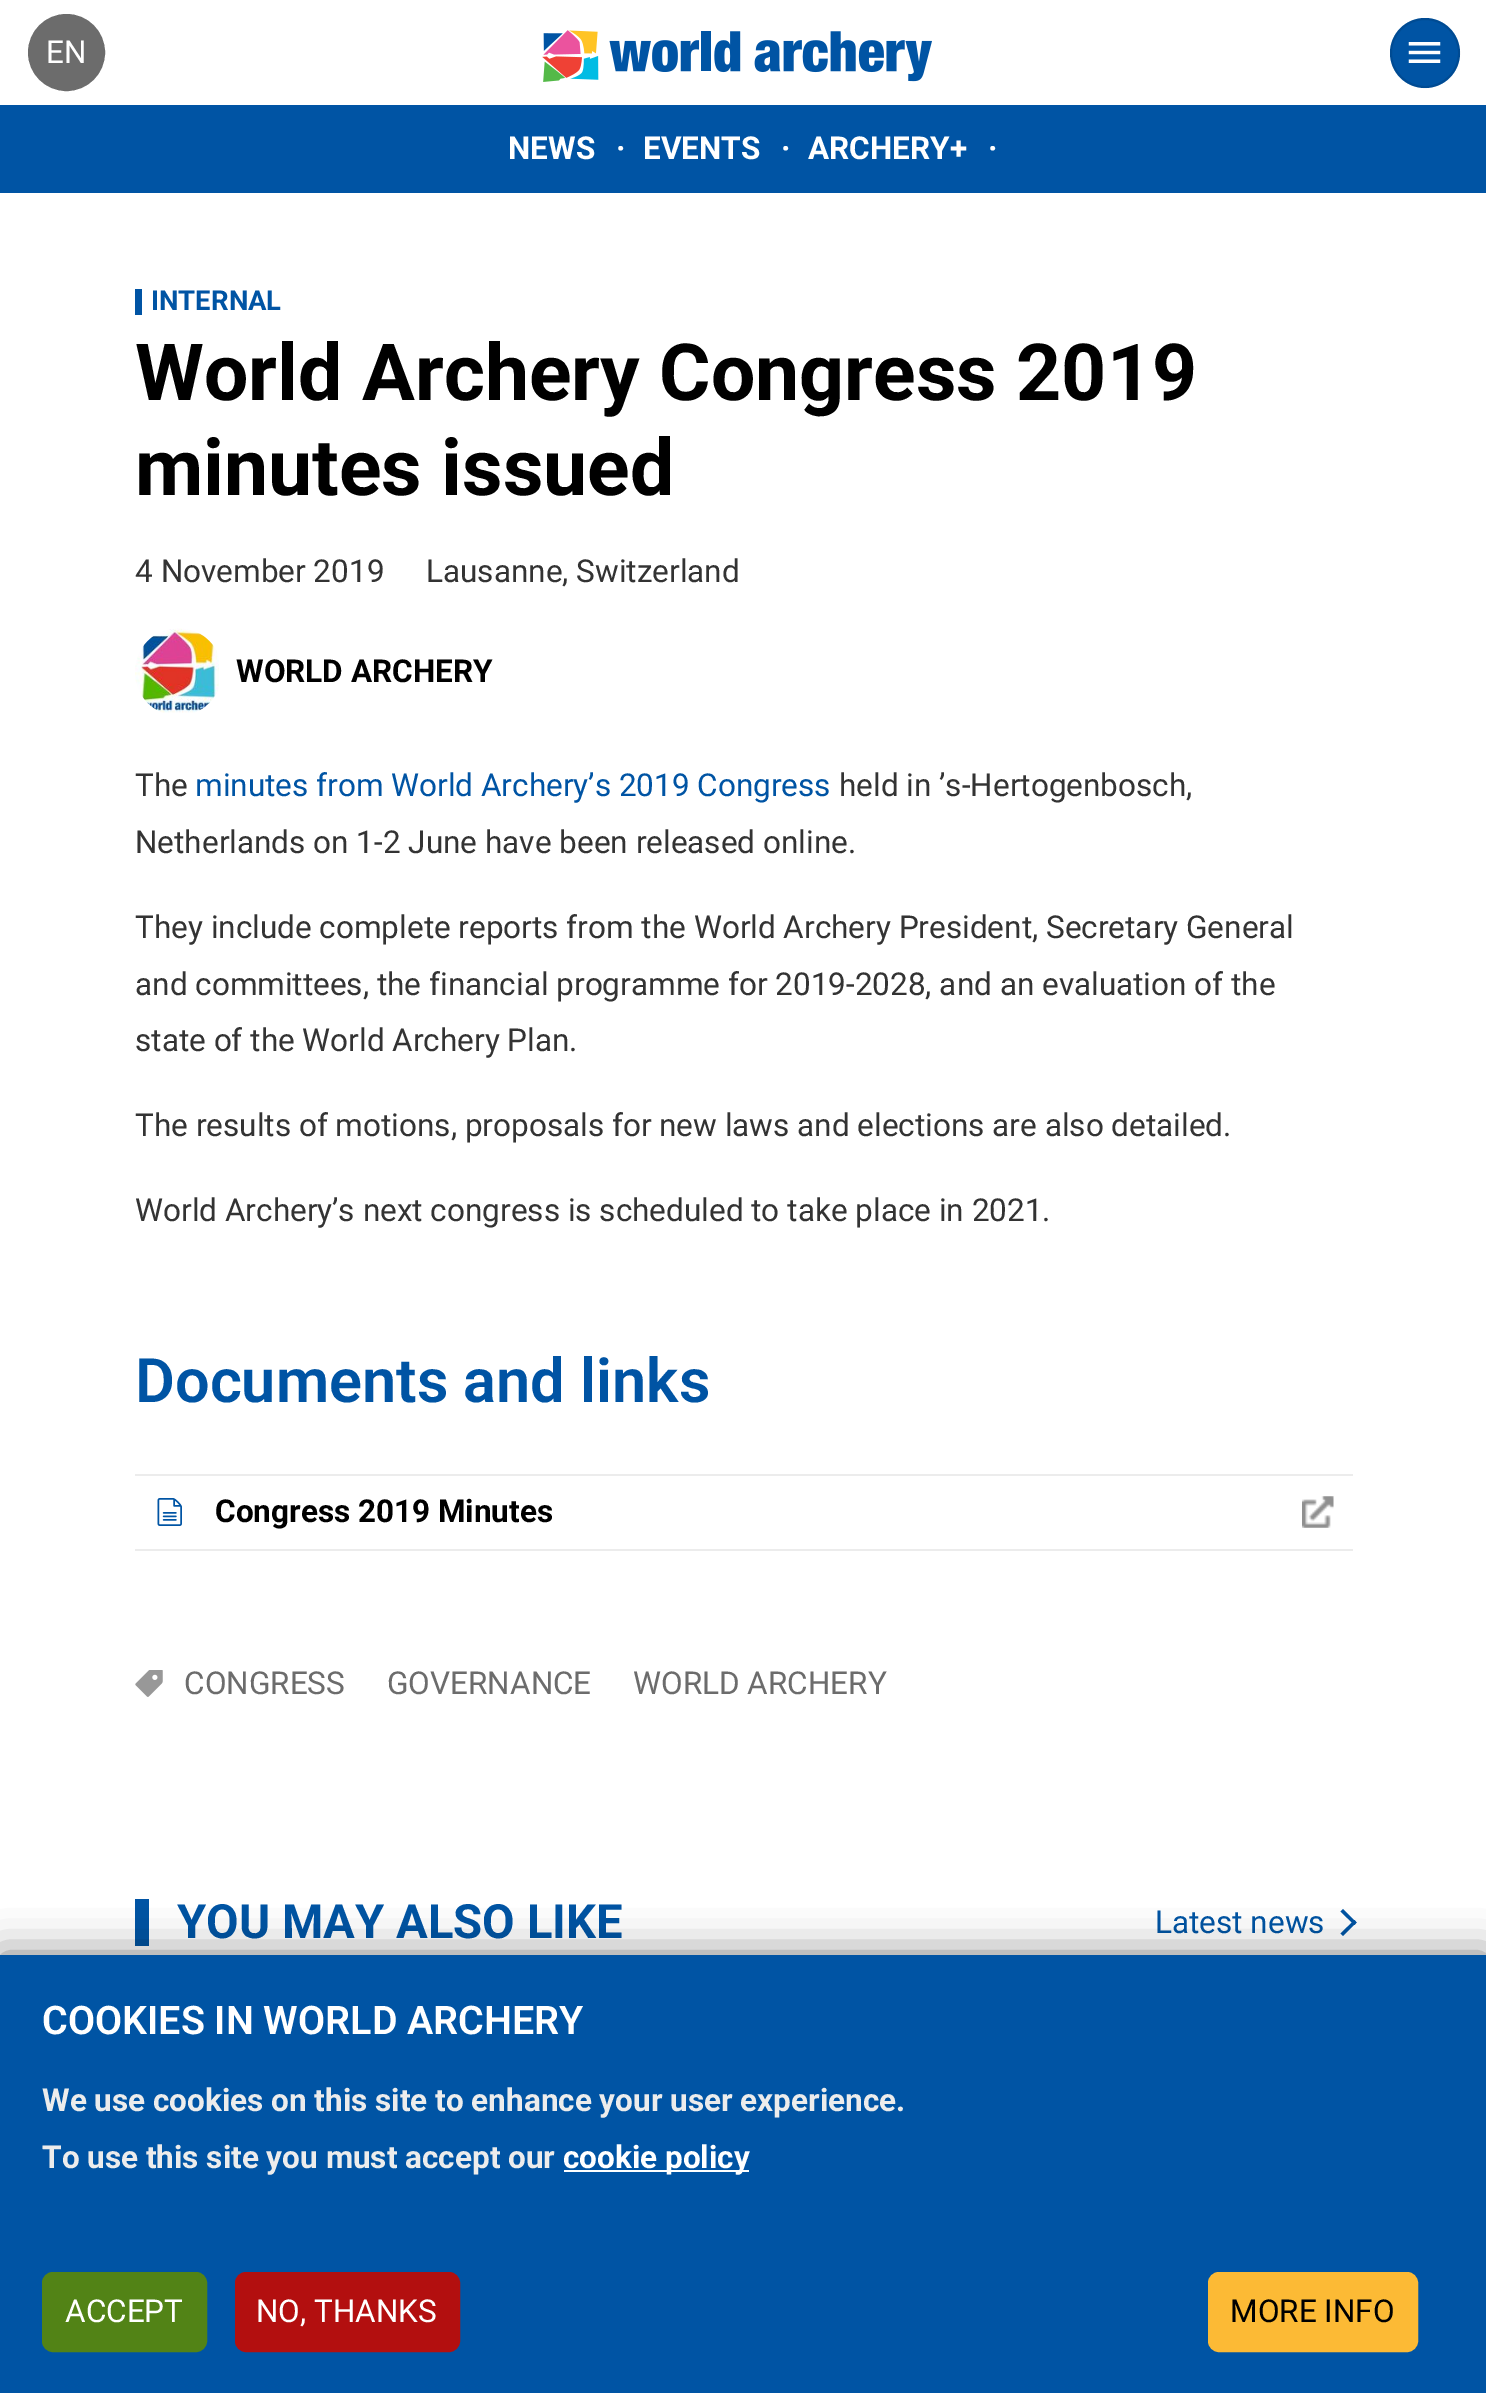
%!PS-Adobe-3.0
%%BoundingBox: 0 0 1486 2393
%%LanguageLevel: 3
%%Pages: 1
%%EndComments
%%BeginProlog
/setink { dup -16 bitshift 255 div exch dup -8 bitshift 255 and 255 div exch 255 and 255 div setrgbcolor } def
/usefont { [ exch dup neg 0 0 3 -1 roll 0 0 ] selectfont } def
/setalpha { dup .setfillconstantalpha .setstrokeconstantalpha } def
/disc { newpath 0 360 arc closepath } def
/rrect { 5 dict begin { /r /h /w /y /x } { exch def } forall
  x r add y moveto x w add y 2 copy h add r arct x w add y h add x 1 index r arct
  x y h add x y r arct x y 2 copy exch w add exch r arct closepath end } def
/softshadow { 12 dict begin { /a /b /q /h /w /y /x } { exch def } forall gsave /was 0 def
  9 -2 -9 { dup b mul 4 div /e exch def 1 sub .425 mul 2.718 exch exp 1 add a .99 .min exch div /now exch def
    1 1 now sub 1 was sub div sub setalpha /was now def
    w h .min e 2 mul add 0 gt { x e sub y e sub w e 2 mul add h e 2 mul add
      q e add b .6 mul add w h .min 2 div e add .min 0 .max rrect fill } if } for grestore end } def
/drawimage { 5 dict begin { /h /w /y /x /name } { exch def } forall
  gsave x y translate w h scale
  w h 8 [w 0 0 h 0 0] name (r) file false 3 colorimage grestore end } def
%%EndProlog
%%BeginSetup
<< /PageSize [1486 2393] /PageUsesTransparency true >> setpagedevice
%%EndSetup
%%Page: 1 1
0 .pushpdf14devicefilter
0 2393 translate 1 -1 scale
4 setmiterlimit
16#FFFFFF setink
0 0 1486 2393 rectfill
16#6C6C6C setink
66.5 52.5 37.5 disc gsave fill grestore
2 setlinewidth
stroke
/Roboto-Regular 31.5 usefont
16#FFFFFF setink
46 63 moveto (EN) show
(img1.raw) 542 30 390 52 drawimage
16#0054A4 setink
1425 53 35 disc fill
0.1 setalpha
16#000000 setink
1425 53 34 disc stroke
1 setalpha
(img2.raw) 1408 42 33 21 drawimage
16#0054A4 setink
0 105 1486 88 rectfill
/Roboto-Bold 31.5 usefont
16#FFFFFF setink
[
    [(NEWS) 508 159]
    [(·) 616 159]
    [(EVENTS) 643 159]
    [(·) 781 159]
    [(ARCHERY+) 808 159]
    [(·) 988 159]
] { aload pop moveto show } forall
16#0054A4 setink
135 289 7 26 rectfill
/Roboto-Bold 27.5 usefont
151 310 moveto (INTERNAL) show
/Roboto-Bold 78.75 usefont
16#000000 setink
135 400 moveto (World Archery Congress 2019) show
135 495 moveto (minutes issued) show
/Roboto-Regular 31.5 usefont
16#333333 setink
135 582 moveto (4 November 2019) show
426 582 moveto (Lausanne, Switzerland) show
(img3.raw) 135 628 84 85 drawimage
/Roboto-Bold 31.5 usefont
16#000000 setink
236 682 moveto (WORLD ARCHERY) show
/Roboto-Regular 31.5 usefont
16#333333 setink
135 796 moveto (The) show
16#0054A4 setink
195 796 moveto (minutes from World Archery’s 2019 Congress) show
16#333333 setink
[
    [(held in ’s-Hertogenbosch,) 839 796]
    [(Netherlands on 1-2 June have been released online.) 135 853]
    [(They include complete reports from the World Archery President, Secretary General) 135 938]
    [(and committees, the financial programme for 2019-2028, and an evaluation of the) 135 995]
    [(state of the World Archery Plan.) 135 1051]
    [(The results of motions, proposals for new laws and elections are also detailed.) 135 1136]
    [(World Archery’s next congress is scheduled to take place in 2021.) 135 1221]
] { aload pop moveto show } forall
/Roboto-SemiBold 61.25 usefont
16#0054A4 setink
135 1402 moveto (Documents and links) show
16#ECECEC setink
135 1474 1218 2 rectfill
135 1549 1218 2 rectfill
(img4.raw) 157 1498 25 28 drawimage
/Roboto-Bold 31.5 usefont
16#000000 setink
215 1522 moveto (Congress 2019 Minutes) show
(img5.raw) 1302 1496 32 32 drawimage
(img6.raw) 135 1670 28 27 drawimage
/Roboto-Regular 31.5 usefont
16#6C6C6C setink
[
    [(CONGRESS) 184 1694]
    [(GOVERNANCE) 387 1694]
    [(WORLD ARCHERY) 633 1694]
] { aload pop moveto show } forall
16#0054A4 setink
135 1899 14 47 rectfill
/Roboto-Bold 47.25 usefont
177 1938 moveto (YOU MAY ALSO LIKE) show
/Roboto-Regular 31.5 usefont
1155 1933 moveto (Latest news) show
1343 1909 moveto 1356.5 1922.5 lineto 1354.5 1925 lineto 1340.5 1911.5 lineto closepath fill
1354.5 1920 moveto 1356.5 1922.5 lineto 1343 1936 lineto 1340.5 1933.5 lineto closepath fill
16#000000 setink
0 1955 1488 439 0 21 0.5 softshadow
16#0054A4 setink
0 1955 1486 438 rectfill
/Roboto-SemiBold 39.4 usefont
16#FFFFFF setink
42 2034 moveto (COOKIES IN WORLD ARCHERY) show
/Roboto-Bold 31.5 usefont
16#ECECEC setink
42 2111 moveto (We use cookies on this site to enhance your user experience.) show
42 2168 moveto (To use this site you must accept our) show
16#FFFFFF setink
564 2170 185 2 rectfill
563 2168 moveto (cookie policy) show
16#528316 setink
43 2273 163 78 10 rrect gsave fill grestore
stroke
/Roboto-Regular 31.5 usefont
16#FFFFFF setink
65 2322 moveto (ACCEPT) show
16#B30F0F setink
236 2273 223 78 10 rrect gsave fill grestore
stroke
16#FFFFFF setink
256 2322 moveto (NO, THANKS) show
16#FCBA35 setink
1209 2273 208 78 10 rrect gsave fill grestore
stroke
16#000000 setink
1230 2322 moveto (MORE INFO) show
.poppdf14devicefilter showpage
%%EOF
